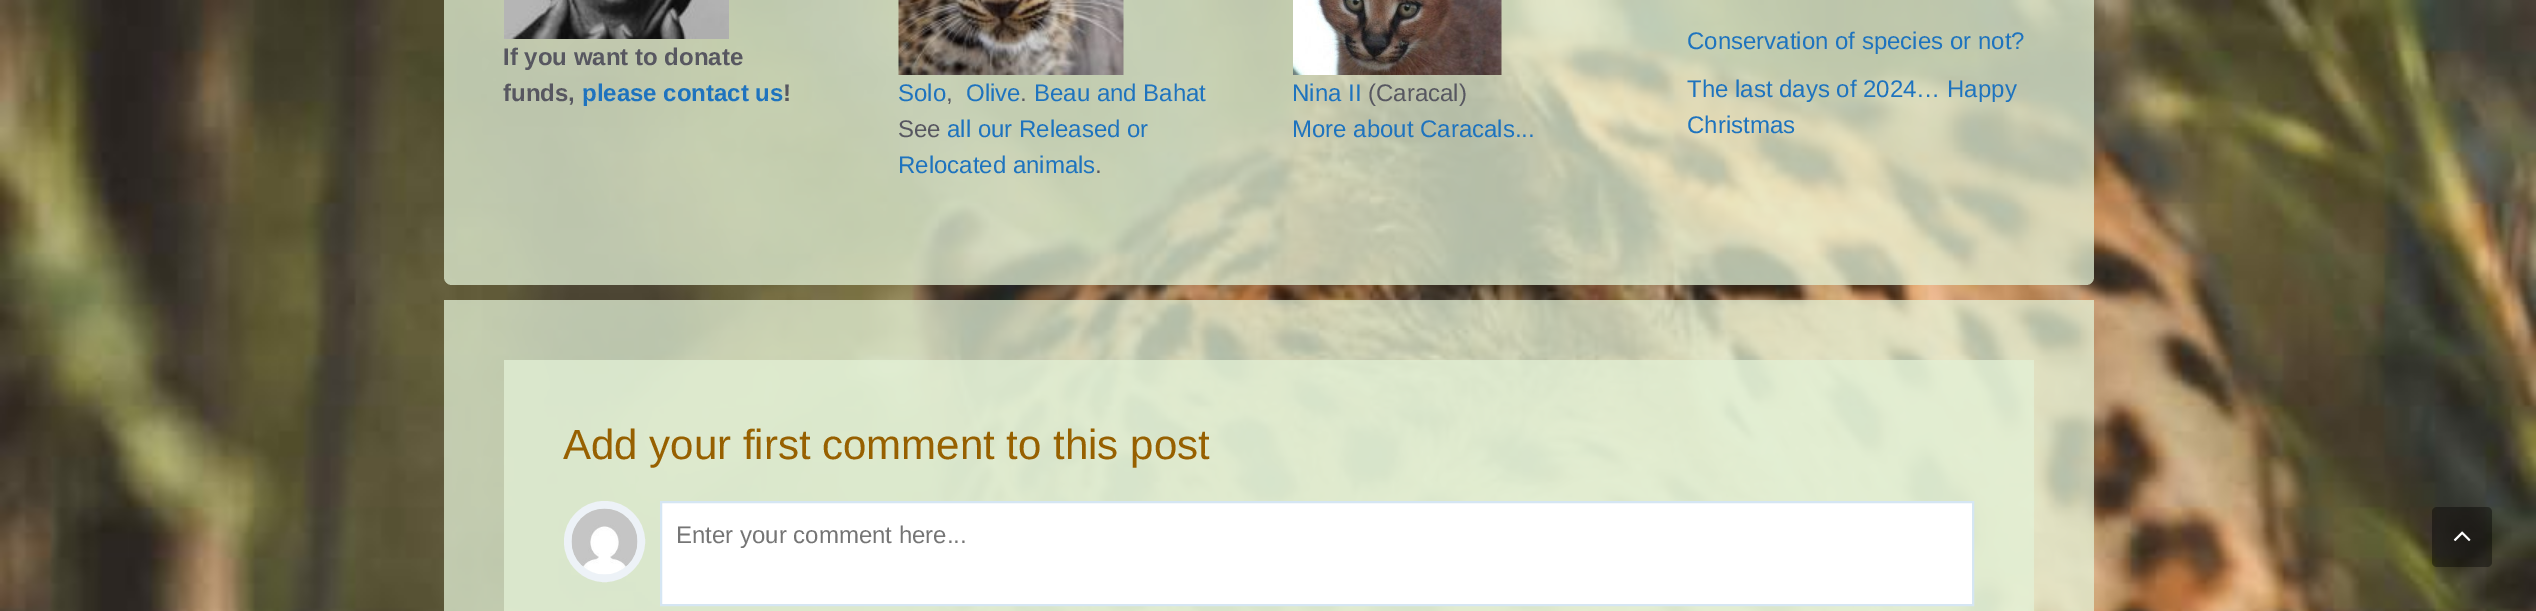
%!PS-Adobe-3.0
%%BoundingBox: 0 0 2536 611
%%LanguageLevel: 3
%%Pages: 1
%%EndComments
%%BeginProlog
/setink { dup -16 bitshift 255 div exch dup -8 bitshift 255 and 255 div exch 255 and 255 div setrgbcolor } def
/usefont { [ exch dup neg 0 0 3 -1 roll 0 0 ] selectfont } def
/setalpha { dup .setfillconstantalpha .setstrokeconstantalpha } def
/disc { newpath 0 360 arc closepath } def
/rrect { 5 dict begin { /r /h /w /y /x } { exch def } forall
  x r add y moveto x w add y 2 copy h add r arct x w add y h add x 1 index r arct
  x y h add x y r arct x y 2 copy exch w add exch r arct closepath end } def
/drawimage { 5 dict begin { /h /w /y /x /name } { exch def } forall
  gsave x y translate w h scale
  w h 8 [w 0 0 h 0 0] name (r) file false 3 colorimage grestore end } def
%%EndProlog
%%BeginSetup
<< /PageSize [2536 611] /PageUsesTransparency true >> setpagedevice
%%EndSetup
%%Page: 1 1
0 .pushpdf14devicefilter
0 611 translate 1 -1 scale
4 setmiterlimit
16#FFFFFF setink
0 0 2536 611 rectfill
(img1.raw) 0 0 2536 611 drawimage
0.75 setalpha
16#E3F1D6 setink
444 -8 1650 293 8 rrect fill
1 setalpha
(img2.raw) 504 0 225 39 drawimage
/LiberationSans-Bold 24 usefont
16#575760 setink
503 65 moveto (If you want to donate) show
503 101 moveto (funds,) show
16#1E73BE setink
582 101 moveto (please contact us) show
16#575760 setink
783 101 moveto (!) show
/LiberationSans-Regular 24 usefont
16#1E73BE setink
[
    [(Conservation of species or not?) 1687 49]
    [(The last days of 2024… Happy) 1687 97]
    [(Christmas) 1687 133]
] { aload pop moveto show } forall
(img3.raw) 898 0 226 75 drawimage
898 101 moveto (Solo) show
16#575760 setink
946 101 moveto (,) show
16#1E73BE setink
966 101 moveto (Olive) show
16#575760 setink
1020 101 moveto (.) show
16#1E73BE setink
1034 101 moveto (Beau and Bahat) show
16#575760 setink
898 137 moveto (See) show
16#1E73BE setink
947 137 moveto (all our Released or) show
898 173 moveto (Relocated animals) show
16#575760 setink
1095 173 moveto (.) show
(img4.raw) 1293 0 209 75 drawimage
16#1E73BE setink
1292 101 moveto (Nina II) show
16#575760 setink
1368 101 moveto (\(Caracal\)) show
16#1E73BE setink
1292 137 moveto (More about Caracals...) show
0.75 setalpha
16#E3F1D6 setink
444 300 1650 311 rectfill
504 360 1530 251 rectfill
/LiberationSans-Regular 42 usefont
1 setalpha
16#976000 setink
563 459 moveto (Add your first comment to this post) show
16#EDF2F7 setink
8 setlinewidth
604.5 541.5 36.5 disc stroke
(img5.raw) 571 508 67 67 drawimage
16#FFFFFF setink
661 502 moveto 1973 502 lineto 1973 605 lineto 661 605 lineto closepath gsave fill grestore
16#D5E6F3 setink
2 setlinewidth
stroke
/LiberationSans-Regular 24 usefont
16#757575 setink
676 543 moveto (Enter your comment here...) show
0.4 setalpha
16#000000 setink
2432 507 60 60 5 rrect fill
1 setalpha
(img6.raw) 2453 531 18 11 drawimage
.poppdf14devicefilter showpage
%%EOF
